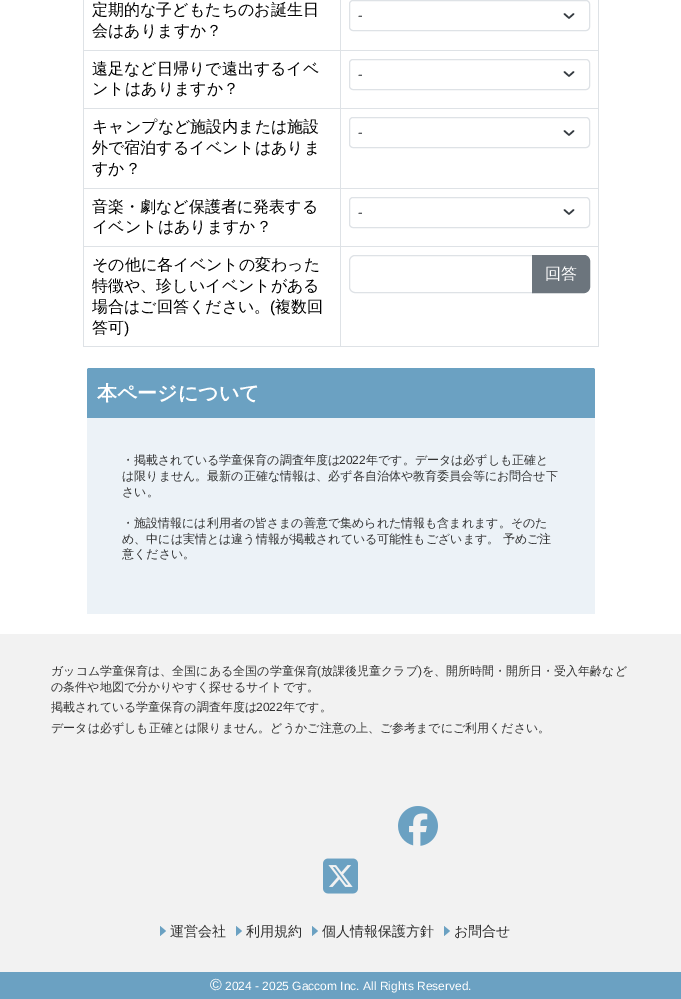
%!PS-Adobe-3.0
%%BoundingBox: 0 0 681 999
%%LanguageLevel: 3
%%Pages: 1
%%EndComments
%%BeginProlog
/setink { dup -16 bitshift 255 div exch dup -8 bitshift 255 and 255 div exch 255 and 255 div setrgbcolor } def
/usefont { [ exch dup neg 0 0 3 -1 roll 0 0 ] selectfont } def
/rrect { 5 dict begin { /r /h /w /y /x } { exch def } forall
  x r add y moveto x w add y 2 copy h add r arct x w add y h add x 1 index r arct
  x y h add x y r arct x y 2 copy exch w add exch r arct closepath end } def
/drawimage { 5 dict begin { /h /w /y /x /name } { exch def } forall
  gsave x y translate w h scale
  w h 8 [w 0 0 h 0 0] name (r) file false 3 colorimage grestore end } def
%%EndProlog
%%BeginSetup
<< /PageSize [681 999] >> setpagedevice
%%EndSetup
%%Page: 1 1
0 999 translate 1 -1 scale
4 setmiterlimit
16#FFFFFF setink
0 0 681 999 rectfill
/WenQuanYiZenHei-Medium 16 usefont
16#000000 setink
92 15 moveto (定期的な子どもたちのお誕生日) show
92 36 moveto (会はありますか？) show
16#343A40 setink
1.5 setlinewidth
1 setlinecap
1 setlinejoin
564.5 14 moveto 569 18 lineto 573.5 14 lineto stroke
16#DEE2E6 setink
1 setlinewidth
0 setlinecap
0 setlinejoin
349.5 0.5 240 30 3.5 rrect stroke
/LiberationSans-Regular 14 usefont
16#212529 setink
358 20 moveto (-) show
16#DEE2E6 setink
83 50 516 1 rectfill
/WenQuanYiZenHei-Medium 16 usefont
16#000000 setink
92 74 moveto (遠足など日帰りで遠出するイベ) show
92 94 moveto (ントはありますか？) show
16#343A40 setink
1.5 setlinewidth
1 setlinecap
1 setlinejoin
564.5 72 moveto 569 76 lineto 573.5 72 lineto stroke
16#DEE2E6 setink
1 setlinewidth
0 setlinecap
0 setlinejoin
349.5 59.5 240 30 3.5 rrect stroke
/LiberationSans-Regular 14 usefont
16#212529 setink
358 79 moveto (-) show
16#DEE2E6 setink
83 108 516 1 rectfill
/WenQuanYiZenHei-Medium 16 usefont
16#000000 setink
[
    [(キャンプなど施設内または施設) 92 132]
    [(外で宿泊するイベントはありま) 92 153]
    [(すか？) 92 174]
] { aload pop moveto show } forall
16#343A40 setink
1.5 setlinewidth
1 setlinecap
1 setlinejoin
564.5 131 moveto 569 135 lineto 573.5 131 lineto stroke
16#DEE2E6 setink
1 setlinewidth
0 setlinecap
0 setlinejoin
349.5 117.5 240 30 3.5 rrect stroke
/LiberationSans-Regular 14 usefont
16#212529 setink
358 137 moveto (-) show
16#DEE2E6 setink
83 188 516 1 rectfill
/WenQuanYiZenHei-Medium 16 usefont
16#000000 setink
92 212 moveto (音楽・劇など保護者に発表する) show
92 232 moveto (イベントはありますか？) show
16#343A40 setink
1.5 setlinewidth
1 setlinecap
1 setlinejoin
564.5 210 moveto 569 214 lineto 573.5 210 lineto stroke
16#DEE2E6 setink
1 setlinewidth
0 setlinecap
0 setlinejoin
349.5 197.5 240 30 3.5 rrect stroke
/LiberationSans-Regular 14 usefont
16#212529 setink
358 217 moveto (-) show
[
    [83 246 516 1 16#DEE2E6]
    [83 346 516 1 16#DEE2E6]
    [83 0 1 347 16#DEE2E6]
] { aload pop setink rectfill } forall
/WenQuanYiZenHei-Medium 16 usefont
16#000000 setink
[
    [(その他に各イベントの変わった) 92 270]
    [(特徴や、珍しいイベントがある) 92 291]
    [(場合はご回答ください。) 92 312]
] { aload pop moveto show } forall
/LiberationSans-Regular 16 usefont
270 312 moveto (\() show
/WenQuanYiZenHei-Medium 16 usefont
275 312 moveto (複数回) show
92 333 moveto (答可) show
/LiberationSans-Regular 16 usefont
124 333 moveto (\)) show
16#DEE2E6 setink
598 0 1 347 rectfill
340 0 1 347 rectfill
355 255.5 moveto 532.5 255.5 lineto 532.5 292.5 lineto 355 292.5 lineto 352 292.5 349.5 290 349.5 287 curveto 349.5 261 lineto 349.5 258 352 255.5 355 255.5 curveto closepath stroke
16#6C757D setink
532.5 255.5 moveto 584 255.5 lineto 587 255.5 589.5 258 589.5 261 curveto 589.5 287 lineto 589.5 290 587 292.5 584 292.5 curveto 532.5 292.5 lineto closepath gsave fill grestore
stroke
/WenQuanYiZenHei-Medium 16 usefont
16#FFFFFF setink
545 279 moveto (回答) show
16#6BA1C2 setink
89 368 moveto 593 368 lineto 594 368 595 369 595 370 curveto 595 418 lineto 87 418 lineto 87 370 lineto 87 369 88 368 89 368 curveto closepath fill
/WenQuanYiZenHei-Bold 20 usefont
16#FFFFFF setink
97 400 moveto (本ページについて) show
16#ECF2F7 setink
87 418 508 196 rectfill
/WenQuanYiZenHei-Medium 12 usefont
16#333333 setink
122 464 moveto (・掲載されている学童保育の調査年度は) show
/LiberationSans-Regular 12 usefont
339 464 moveto (2022) show
/WenQuanYiZenHei-Medium 12 usefont
[
    [(年です。データは必ずしも正確と) 366 464]
    [(は限りません。最新の正確な情報は、必ず各自治体や教育委員会等にお問合せ下) 122 480]
    [(さい。) 122 496]
    [(・施設情報には利用者の皆さまの善意で集められた情報も含まれます。そのた) 122 527]
    [(め、中には実情とは違う情報が掲載されている可能性もございます。 予めご注) 122 543]
    [(意ください。) 122 558]
] { aload pop moveto show } forall
16#F2F2F2 setink
0 634 681 338 rectfill
16#333333 setink
51 675 moveto (ガッコム学童保育は、全国にある全国の学童保育) show
/LiberationSans-Regular 12 usefont
317 675 moveto (\() show
/WenQuanYiZenHei-Medium 12 usefont
321 675 moveto (放課後児童クラブ) show
/LiberationSans-Regular 12 usefont
418 675 moveto (\)) show
/WenQuanYiZenHei-Medium 12 usefont
[
    [(を、開所時間・開所日・受入年齢など) 422 675]
    [(の条件や地図で分かりやすく探せるサイトです。) 51 691]
    [(掲載されている学童保育の調査年度は) 51 711]
] { aload pop moveto show } forall
/LiberationSans-Regular 12 usefont
256 711 moveto (2022) show
/WenQuanYiZenHei-Medium 12 usefont
283 711 moveto (年です。) show
51 732 moveto (データは必ずしも正確とは限りません。どうかご注意の上、ご参考までにご利用ください。) show
(img1.raw) 398 806 40 40 drawimage
(img2.raw) 323 858 35 36 drawimage
16#6BA1C2 setink
160 936 moveto 160 926 lineto 166 931 lineto closepath fill
/WenQuanYiZenHei-Medium 14 usefont
16#333333 setink
170 936 moveto (運営会社) show
16#6BA1C2 setink
236 936 moveto 236 926 lineto 242 931 lineto closepath fill
16#333333 setink
246 936 moveto (利用規約) show
16#6BA1C2 setink
312 936 moveto 312 926 lineto 318 931 lineto closepath fill
16#333333 setink
322 936 moveto (個人情報保護方針) show
16#6BA1C2 setink
444 936 moveto 444 926 lineto 450 931 lineto closepath fill
16#333333 setink
454 936 moveto (お問合せ) show
16#6BA1C2 setink
0 972 681 27 rectfill
/LiberationSans-Regular 16 usefont
16#FFFFFF setink
210 990 moveto (©) show
/LiberationSans-Regular 12 usefont
225 990 moveto (2024 - 2025 Gaccom Inc. All Rights Reserved.) show
showpage
%%EOF
